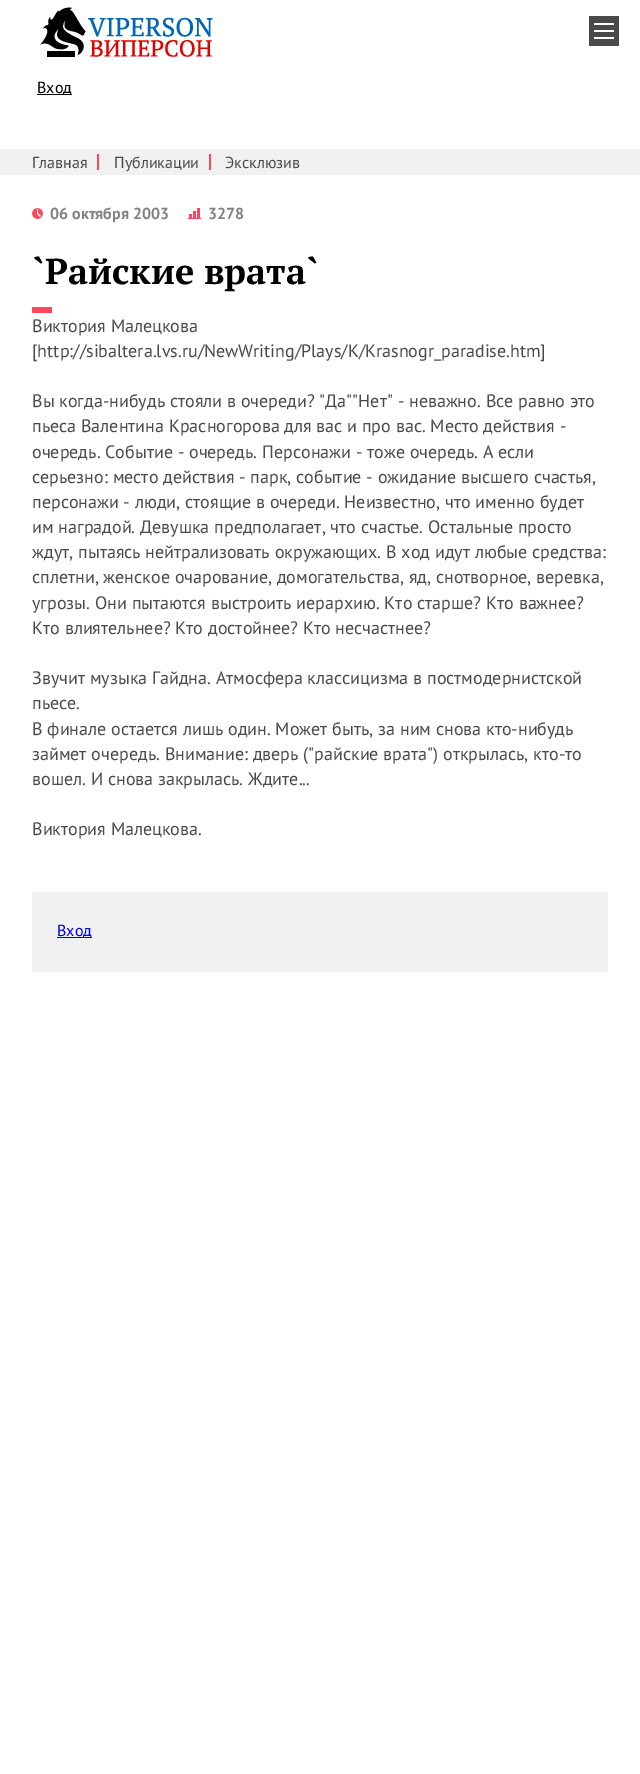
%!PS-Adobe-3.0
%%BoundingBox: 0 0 640 1774
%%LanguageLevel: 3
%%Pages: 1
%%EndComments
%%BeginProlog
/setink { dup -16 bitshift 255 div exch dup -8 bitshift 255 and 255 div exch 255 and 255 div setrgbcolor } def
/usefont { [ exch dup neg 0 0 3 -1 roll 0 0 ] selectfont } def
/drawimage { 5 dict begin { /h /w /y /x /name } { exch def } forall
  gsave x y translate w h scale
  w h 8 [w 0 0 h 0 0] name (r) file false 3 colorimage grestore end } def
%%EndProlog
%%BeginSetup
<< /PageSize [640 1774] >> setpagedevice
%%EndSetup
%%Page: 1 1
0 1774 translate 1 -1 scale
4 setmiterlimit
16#FFFFFF setink
0 0 640 1774 rectfill
(img1.raw) 40 7 173 50 drawimage
[
    [589 16 30 30 16#4A4A4A]
    [594 23 20 2 16#FFFFFF]
    [594 37 20 2 16#FFFFFF]
    [594 30 20 2 16#FFFFFF]
    [37 94 35 1 16#000000]
] { aload pop setink rectfill } forall
/PTSans-Regular 16 usefont
37 93 moveto (Вход) show
16#F1F1F1 setink
0 149 640 26 rectfill
16#FF465D setink
97 154 2 16 rectfill
16#4A4A4A setink
32 168 moveto (Главная) show
16#FF465D setink
209 154 2 16 rectfill
16#4A4A4A setink
114 168 moveto (Публикации) show
225 168 moveto (Эксклюзив) show
(img2.raw) 32 208 11 11 drawimage
/PTSans-Bold 16 usefont
16#828282 setink
50 219 moveto (06 октября 2003) show
(img3.raw) 188 208 13 11 drawimage
208 219 moveto (3278) show
/PTSerif-Bold 36 usefont
16#000000 setink
32 284 moveto (`Райские врата`) show
16#FF465D setink
32 307 20 6 rectfill
/PTSans-Regular 18 usefont
16#4A4A4A setink
[
    [(Виктория Малецкова) 32 332]
    [([http://sibaltera.lvs.ru/NewWriting/Plays/K/Krasnogr_paradise.htm]) 32 357]
    [(Вы когда-нибудь стояли в очереди? "Да""Нет" - неважно. Все равно это) 32 407]
    [(пьеса Валентина Красногорова для вас и про вас. Место действия -) 32 432]
    [(очередь. Событие - очередь. Персонажи - тоже очередь. А если) 32 458]
    [(серьезно: место действия - парк, событие - ожидание высшего счастья,) 32 483]
    [(персонажи - люди, стоящие в очереди. Неизвестно, что именно будет) 32 508]
    [(им наградой. Девушка предполагает, что счастье. Остальные просто) 32 533]
    [(ждут, пытаясь нейтрализовать окружающих. В ход идут любые средства:) 32 558]
    [(сплетни, женское очарование, домогательства, яд, снотворное, веревка,) 32 583]
    [(угрозы. Они пытаются выстроить иерархию. Кто старше? Кто важнее?) 32 609]
    [(Кто влиятельнее? Кто достойнее? Кто несчастнее?) 32 634]
    [(Звучит музыка Гайдна. Атмосфера классицизма в постмодернистской) 32 684]
    [(пьесе.) 32 709]
    [(В финале остается лишь один. Может быть, за ним снова кто-нибудь) 32 735]
    [(займет очередь. Внимание: дверь \("райские врата"\) открылась, кто-то) 32 760]
    [(вошел. И снова закрылась. Ждите...) 32 785]
    [(Виктория Малецкова.) 32 835]
] { aload pop moveto show } forall
16#F1F1F1 setink
32 892 576 80 rectfill
16#0000EE setink
57 937 35 1 rectfill
/PTSans-Regular 16 usefont
57 936 moveto (Вход) show
showpage
%%EOF
